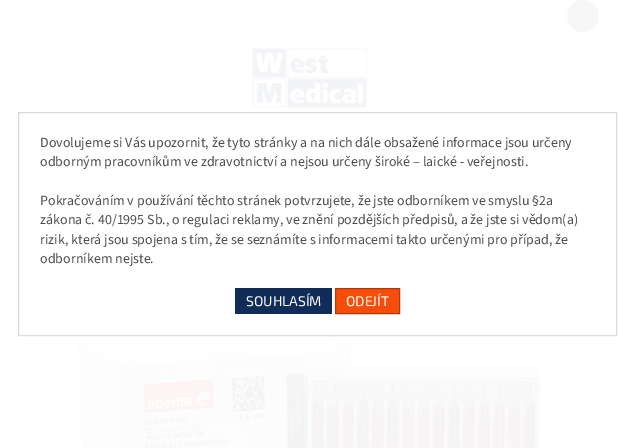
%!PS-Adobe-3.0
%%BoundingBox: 0 0 634 448
%%LanguageLevel: 3
%%Pages: 1
%%EndComments
%%BeginProlog
/setink { dup -16 bitshift 255 div exch dup -8 bitshift 255 and 255 div exch 255 and 255 div setrgbcolor } def
/usefont { [ exch dup neg 0 0 3 -1 roll 0 0 ] selectfont } def
/disc { newpath 0 360 arc closepath } def
/drawimage { 5 dict begin { /h /w /y /x /name } { exch def } forall
  gsave x y translate w h scale
  w h 8 [w 0 0 h 0 0] name (r) file false 3 colorimage grestore end } def
%%EndProlog
%%BeginSetup
<< /PageSize [634 448] >> setpagedevice
%%EndSetup
%%Page: 1 1
0 448 translate 1 -1 scale
4 setmiterlimit
16#FFFFFF setink
0 0 634 448 rectfill
16#F7F7F7 setink
583 16 16 disc fill
(img1.raw) 252 48 115 60 drawimage
(img2.raw) 76 336 468 112 drawimage
16#DADADA setink
18.5 112.5 598 223 rectstroke
/SourceSans3-Regular 14 usefont
16#4D4D4D setink
[
    [(Dovolujeme si Vás upozornit, že tyto stránky a na nich dále obsažené informace jsou určeny) 40 147]
    [(odborným pracovníkům ve zdravotnictví a nejsou určeny široké – laické - veřejnosti.) 40 166]
    [(Pokračováním v používání těchto stránek potvrzujete, že jste odborníkem ve smyslu §2a) 40 205]
    [(zákona č. 40/1995 Sb., o regulaci reklamy, ve znění pozdějších předpisů, a že jste si vědom\(a\)) 40 224]
    [(rizik, která jsou spojena s tím, že se seznámíte s informacemi takto určenými pro případ, že) 40 244]
    [(odborníkem nejste.) 40 263]
] { aload pop moveto show } forall
16#102C58 setink
235 288 97 26 rectfill
/Exo2-Regular 14 usefont
16#FFFFFF setink
246 306 moveto (SOUHLASÍM) show
16#F74D0B setink
335.5 288.5 moveto 399.5 288.5 lineto 399.5 313.5 lineto 335.5 313.5 lineto closepath gsave fill grestore
16#B43909 setink
stroke
16#FFFFFF setink
346 306 moveto (ODEJÍT) show
showpage
%%EOF
